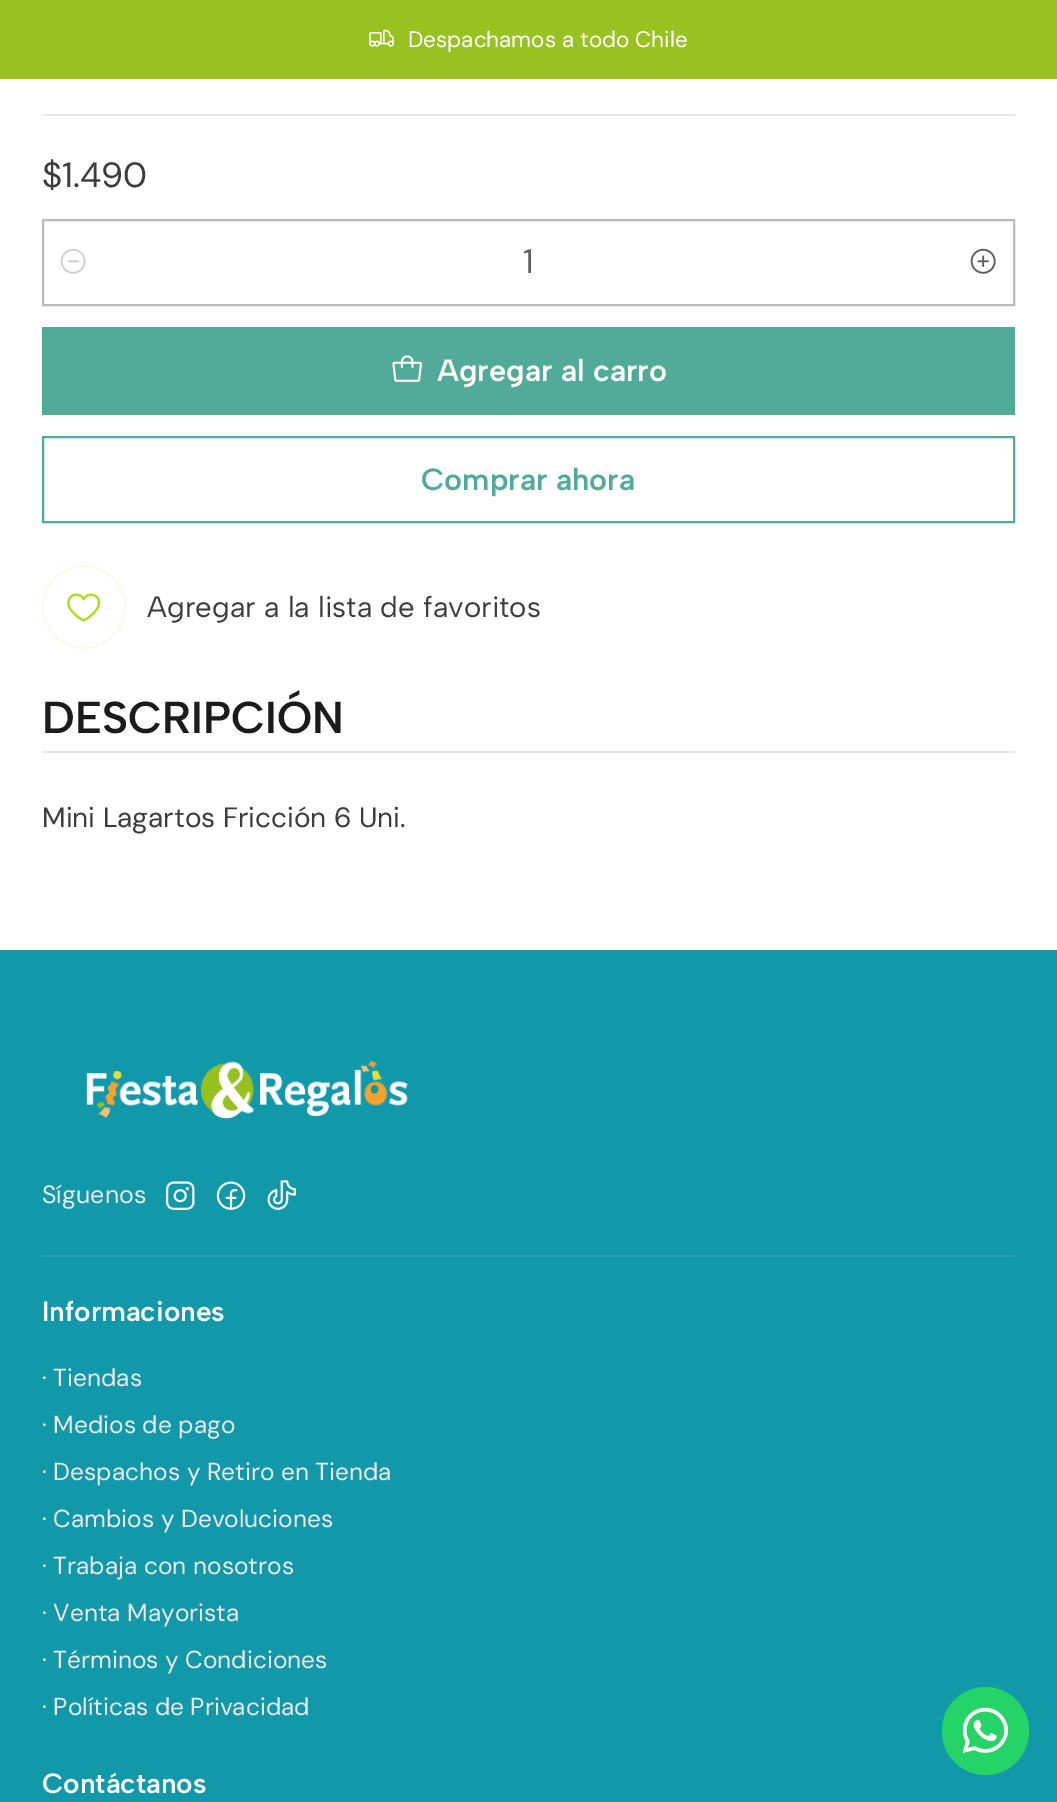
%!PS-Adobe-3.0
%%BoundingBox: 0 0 1057 1802
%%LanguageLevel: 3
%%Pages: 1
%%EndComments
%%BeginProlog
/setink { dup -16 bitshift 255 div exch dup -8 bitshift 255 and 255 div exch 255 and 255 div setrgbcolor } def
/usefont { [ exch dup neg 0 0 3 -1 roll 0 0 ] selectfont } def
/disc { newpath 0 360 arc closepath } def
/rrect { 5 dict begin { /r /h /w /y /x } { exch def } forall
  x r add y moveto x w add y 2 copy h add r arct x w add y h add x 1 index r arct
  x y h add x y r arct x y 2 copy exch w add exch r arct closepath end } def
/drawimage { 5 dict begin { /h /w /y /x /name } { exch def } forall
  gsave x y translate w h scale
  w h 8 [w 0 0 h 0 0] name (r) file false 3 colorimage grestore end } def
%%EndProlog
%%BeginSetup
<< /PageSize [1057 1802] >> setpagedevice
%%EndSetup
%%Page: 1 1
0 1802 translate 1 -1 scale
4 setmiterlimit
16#FFFFFF setink
0 0 1057 1802 rectfill
16#99C221 setink
0 0 1057 79 rectfill
(img1.raw) 369 29 25 18 drawimage
/DMSans-Regular 22.4 usefont
16#FFFFFF setink
408 47 moveto (Despachamos a todo Chile) show
16#E8E8E8 setink
42 114 973 2 rectfill
/DMSans-Regular 35 usefont
16#3D3D3D setink
42 187 moveto ($1.490) show
16#BBBBBB setink
2 setlinewidth
43 220 971 85 rectstroke
(img2.raw) 60 248 26 26 drawimage
/DMSans-Regular 34 usefont
16#5F5F5F setink
523 273 moveto (1) show
(img3.raw) 970 248 26 26 drawimage
16#52AB98 setink
42 327 973 88 rectfill
(img4.raw) 392 355 30 27 drawimage
/AlbertSans-SemiBold 30.75 usefont
16#FFFFFF setink
437 381 moveto (Agregar al carro) show
16#52AB98 setink
43 437 971 85 rectstroke
421 490 moveto (Comprar ahora) show
16#F7FCE8 setink
84 607 41 disc stroke
(img5.raw) 67 593 34 29 drawimage
/AlbertSans-Regular 29.4 usefont
16#3D3D3D setink
147 617 moveto (Agregar a la lista de favoritos) show
16#E8E8E8 setink
42 751 973 2 rectfill
/AlbertSans-SemiBold 44.75 usefont
16#1B1B1B setink
42 733 moveto (DESCRIPCIÓN) show
/DMSans-Regular 28 usefont
16#3D3D3D setink
42 827 moveto (Mini Lagartos Fricción 6 Uni.) show
16#1199AA setink
0 950 1057 852 rectfill
(img6.raw) 86 1060 322 59 drawimage
/DMSans-Regular 25 usefont
16#EBE9EC setink
42 1203 moveto (Síguenos) show
(img7.raw) 166 1181 29 29 drawimage
(img8.raw) 216 1181 30 29 drawimage
(img9.raw) 267 1180 29 30 drawimage
16#29A3B3 setink
42 1255 973 2 rectfill
/AlbertSans-SemiBold 28 usefont
16#FFFFFF setink
42 1321 moveto (Informaciones) show
/DMSans-Regular 24.5 usefont
16#EBE9EC setink
[
    [(· Tiendas) 42 1386]
    [(· Medios de pago) 42 1433]
    [(· Despachos y Retiro en Tienda) 42 1480]
    [(· Cambios y Devoluciones) 42 1527]
    [(· Trabaja con nosotros) 42 1574]
    [(· Venta Mayorista) 42 1621]
    [(· Términos y Condiciones) 42 1668]
    [(· Políticas de Privacidad) 42 1715]
] { aload pop moveto show } forall
/AlbertSans-SemiBold 28 usefont
16#FFFFFF setink
42 1793 moveto (Contáctanos) show
16#25D366 setink
942 1687 87 88 43.5 rrect fill
(img10.raw) 963 1707 45 46 drawimage
showpage
%%EOF
